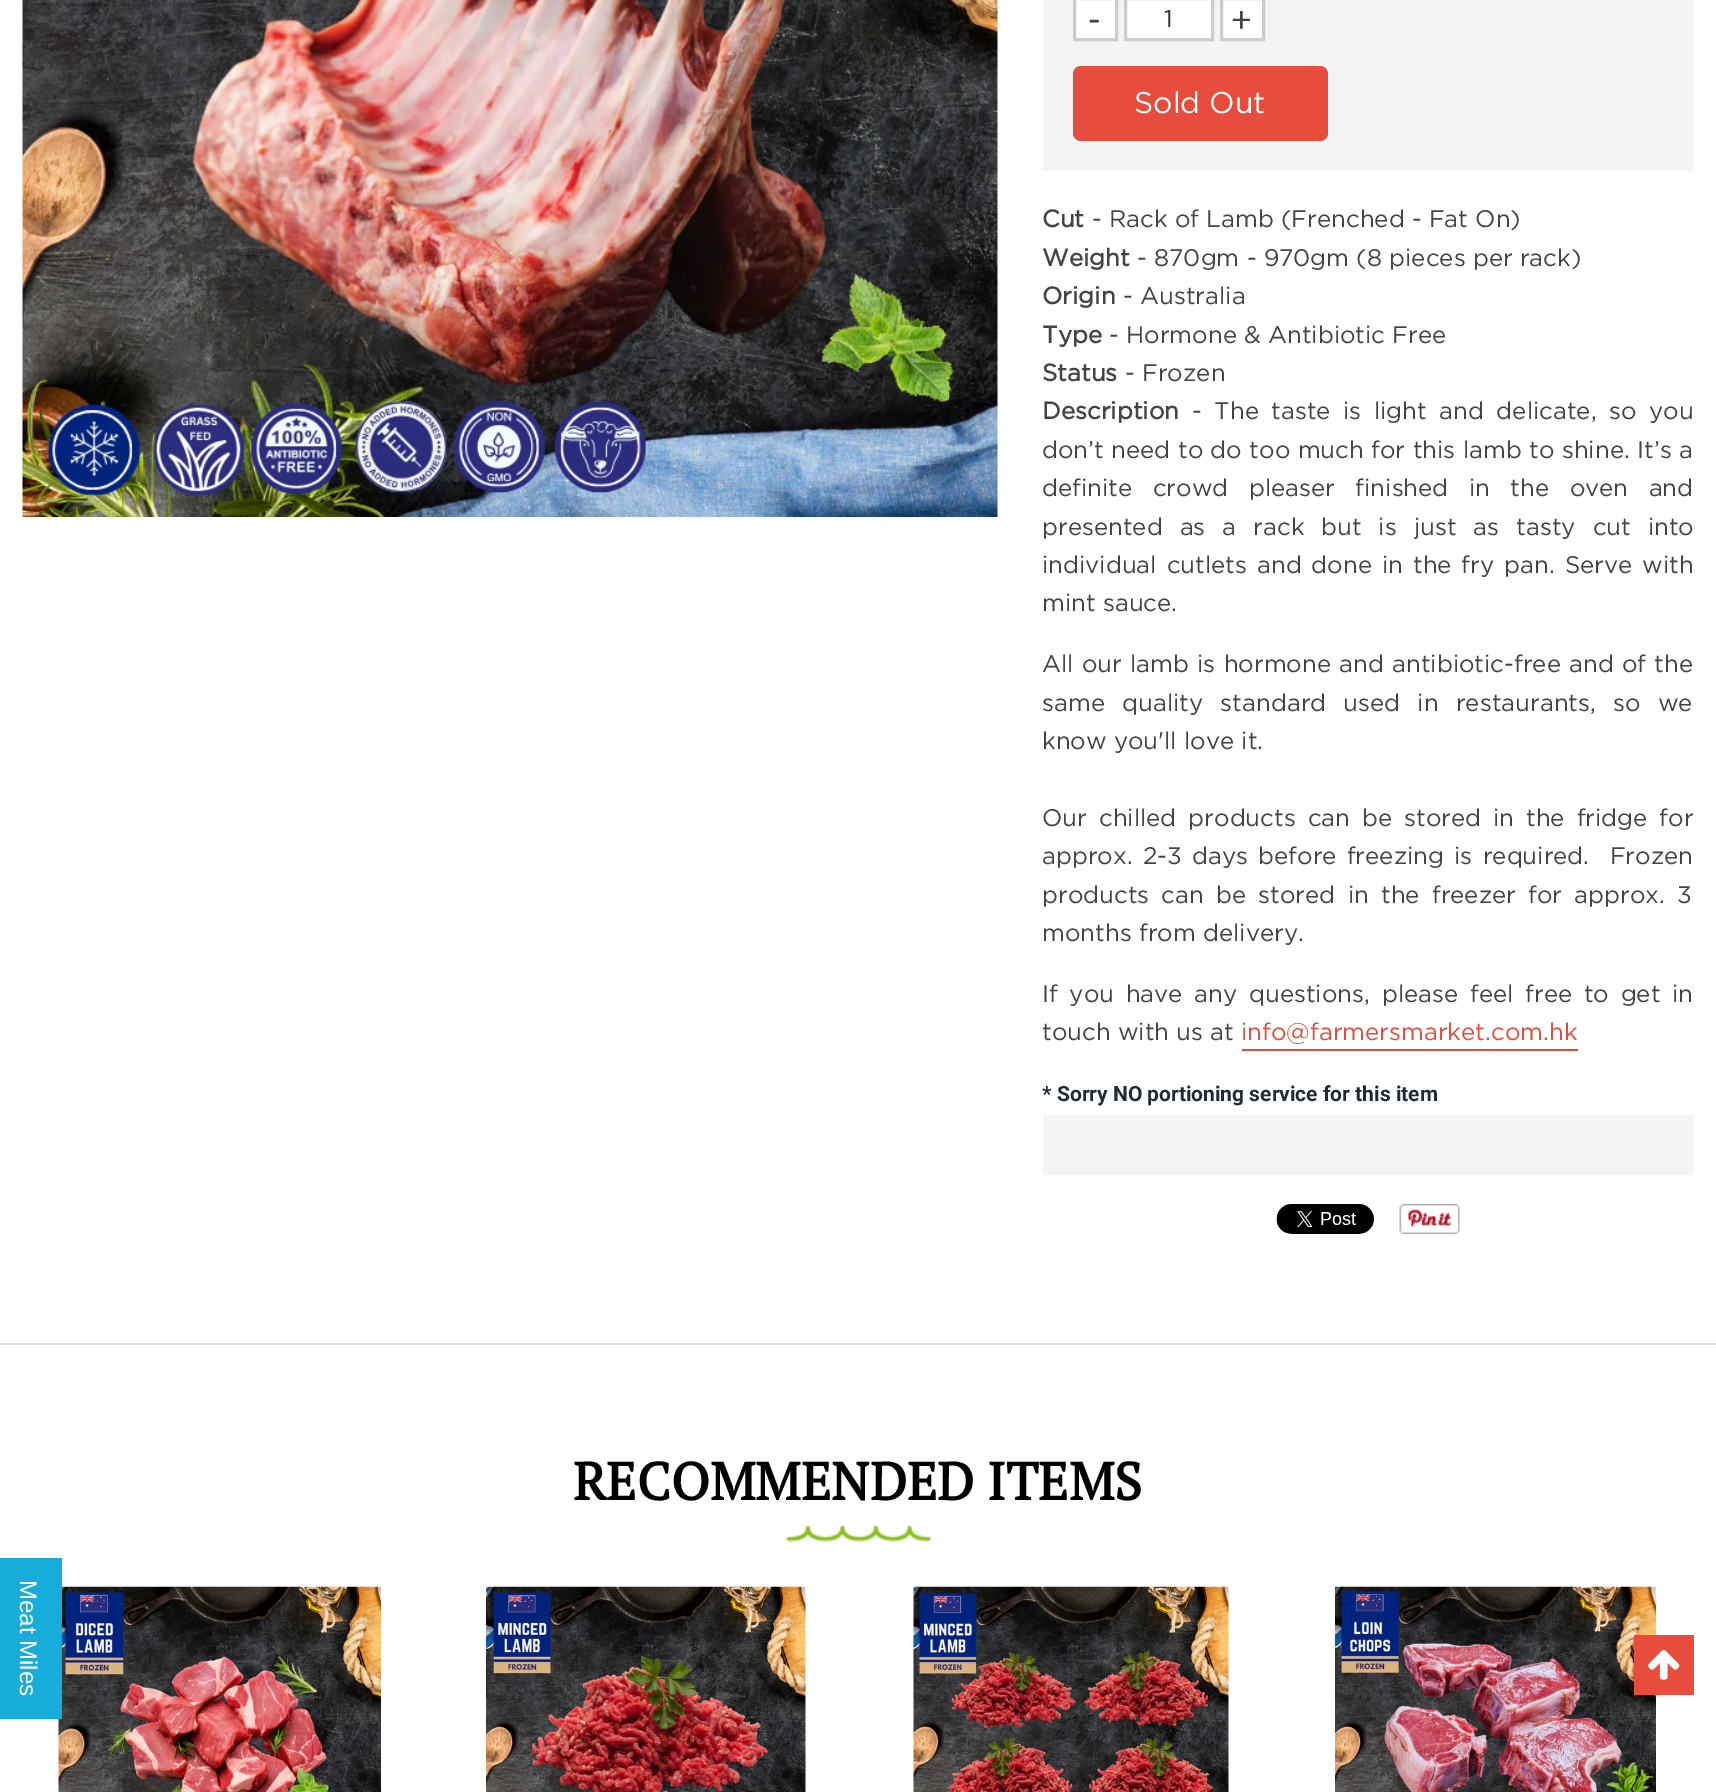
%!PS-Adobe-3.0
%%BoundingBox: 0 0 1716 1792
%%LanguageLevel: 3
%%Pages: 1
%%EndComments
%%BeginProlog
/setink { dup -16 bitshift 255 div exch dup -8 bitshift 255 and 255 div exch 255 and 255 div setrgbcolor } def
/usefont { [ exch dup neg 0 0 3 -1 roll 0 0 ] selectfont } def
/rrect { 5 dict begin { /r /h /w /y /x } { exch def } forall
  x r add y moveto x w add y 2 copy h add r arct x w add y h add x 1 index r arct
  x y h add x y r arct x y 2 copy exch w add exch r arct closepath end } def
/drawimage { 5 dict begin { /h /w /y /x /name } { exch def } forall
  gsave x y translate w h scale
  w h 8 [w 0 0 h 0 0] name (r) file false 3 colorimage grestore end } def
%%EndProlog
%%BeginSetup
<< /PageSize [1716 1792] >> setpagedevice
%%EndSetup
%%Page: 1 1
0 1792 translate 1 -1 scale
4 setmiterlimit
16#FFFFFF setink
0 0 1716 1792 rectfill
(img1.raw) 22 0 976 517 drawimage
16#F4F4F4 setink
1043 0 651 171 rectfill
16#FFFFFF setink
1074.5 -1.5 moveto 1116.5 -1.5 lineto 1116.5 39.5 lineto 1074.5 39.5 lineto closepath gsave fill grestore
16#CCCCCC setink
3 setlinewidth
stroke
/Lato-Regular 36 usefont
16#444444 setink
1088 32 moveto (-) show
16#FFFFFF setink
1125.5 -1.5 moveto 1212.5 -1.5 lineto 1212.5 39.5 lineto 1125.5 39.5 lineto closepath gsave fill grestore
16#CCCCCC setink
stroke
/Gotham-Regular 24 usefont
16#333333 setink
1164 27 moveto (1) show
16#FFFFFF setink
1221.5 -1.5 moveto 1263.5 -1.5 lineto 1263.5 39.5 lineto 1221.5 39.5 lineto closepath gsave fill grestore
16#CCCCCC setink
stroke
/Lato-Regular 36 usefont
16#444444 setink
1231 32 moveto (+) show
16#E74C3C setink
1073 66 255 75 8 rrect fill
/Gotham-Regular 30 usefont
16#FFFFFF setink
1134 113 moveto (Sold Out) show
/Gotham-Bold 24 usefont
16#444444 setink
1042 227 moveto (Cut) show
/Gotham-Regular 24 usefont
1092 227 moveto (- Rack of Lamb \(Frenched - Fat On\)) show
/Gotham-Bold 24 usefont
1042 266 moveto (Weight) show
/Gotham-Regular 24 usefont
1137 266 moveto (- 870gm - 970gm \(8 pieces per rack\)) show
/Gotham-Bold 24 usefont
1042 304 moveto (Origin) show
/Gotham-Regular 24 usefont
1123 304 moveto (- Australia) show
/Gotham-Bold 24 usefont
1042 343 moveto (Type) show
/Gotham-Regular 24 usefont
1109 343 moveto (- Hormone & Antibiotic Free) show
/Gotham-Bold 24 usefont
1042 381 moveto (Status) show
/Gotham-Regular 24 usefont
1125 381 moveto (- Frozen) show
/Gotham-Bold 24 usefont
1042 419 moveto (Description) show
/Gotham-Regular 24 usefont
1192 419 moveto 5.25 0 32 (- The taste is light and delicate, so you) widthshow
1042 458 moveto 0.25 0 32 (don’t need to do too much for this lamb to shine. It’s a) widthshow
1042 496 moveto 13.25 0 32 (definite crowd pleaser finished in the oven and) widthshow
1042 535 moveto 9.75 0 32 (presented as a rack but is just as tasty cut into) widthshow
1042 573 moveto 2.75 0 32 (individual cutlets and done in the fry pan. Serve with) widthshow
1042 611 moveto (mint sauce.) show
1042 672 moveto 1 0 32 (All our lamb is hormone and antibiotic-free and of the) widthshow
1042 711 moveto 10 0 32 (same quality standard used in restaurants, so we) widthshow
1042 749 moveto (know you'll love it.) show
1042 826 moveto 4.75 0 32 (Our chilled products can be stored in the fridge for) widthshow
1042 864 moveto 3 0 32 (approx. 2-3 days before freezing is required.  Frozen) widthshow
1042 903 moveto 5 0 32 (products can be stored in the freezer for approx. 3) widthshow
1042 941 moveto (months from delivery.) show
1042 1002 moveto 4.5 0 32 (If you have any questions, please feel free to get in) widthshow
1042 1040 moveto (touch with us at) show
16#E74C3C setink
1241 1040 moveto (info@farmersmarket.com.hk) show
1242 1049 336 2 rectfill
/Roboto-Bold 21 usefont
16#212B36 setink
1042 1101 moveto (* Sorry NO portioning service for this item) show
16#F4F4F4 setink
1043 1115 651 60 rectfill
(img2.raw) 1276 1204 98 30 drawimage
(img3.raw) 1399 1204 61 30 drawimage
16#DDDDDD setink
0 1343 1716 2 rectfill
/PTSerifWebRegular-Bold 52.5 usefont
16#000000 setink
573 1500 moveto (RECOMMENDED ITEMS) show
(img4.raw) 786 1525 146 17 drawimage
(img5.raw) 58 1586 323 206 drawimage
(img6.raw) 486 1586 320 206 drawimage
(img7.raw) 913 1586 316 206 drawimage
(img8.raw) 1335 1586 321 206 drawimage
16#16ADDB setink
0 1558 62 161 rectfill
/LiberationSans-Regular 24 usefont
16#FFFFFF setink
gsave 20 1580 translate 90 rotate 0 0 moveto (Meat Miles) show grestore
16#E74C3C setink
1634 1635 60 60 rectfill
(img9.raw) 1648 1650 32 30 drawimage
showpage
%%EOF
